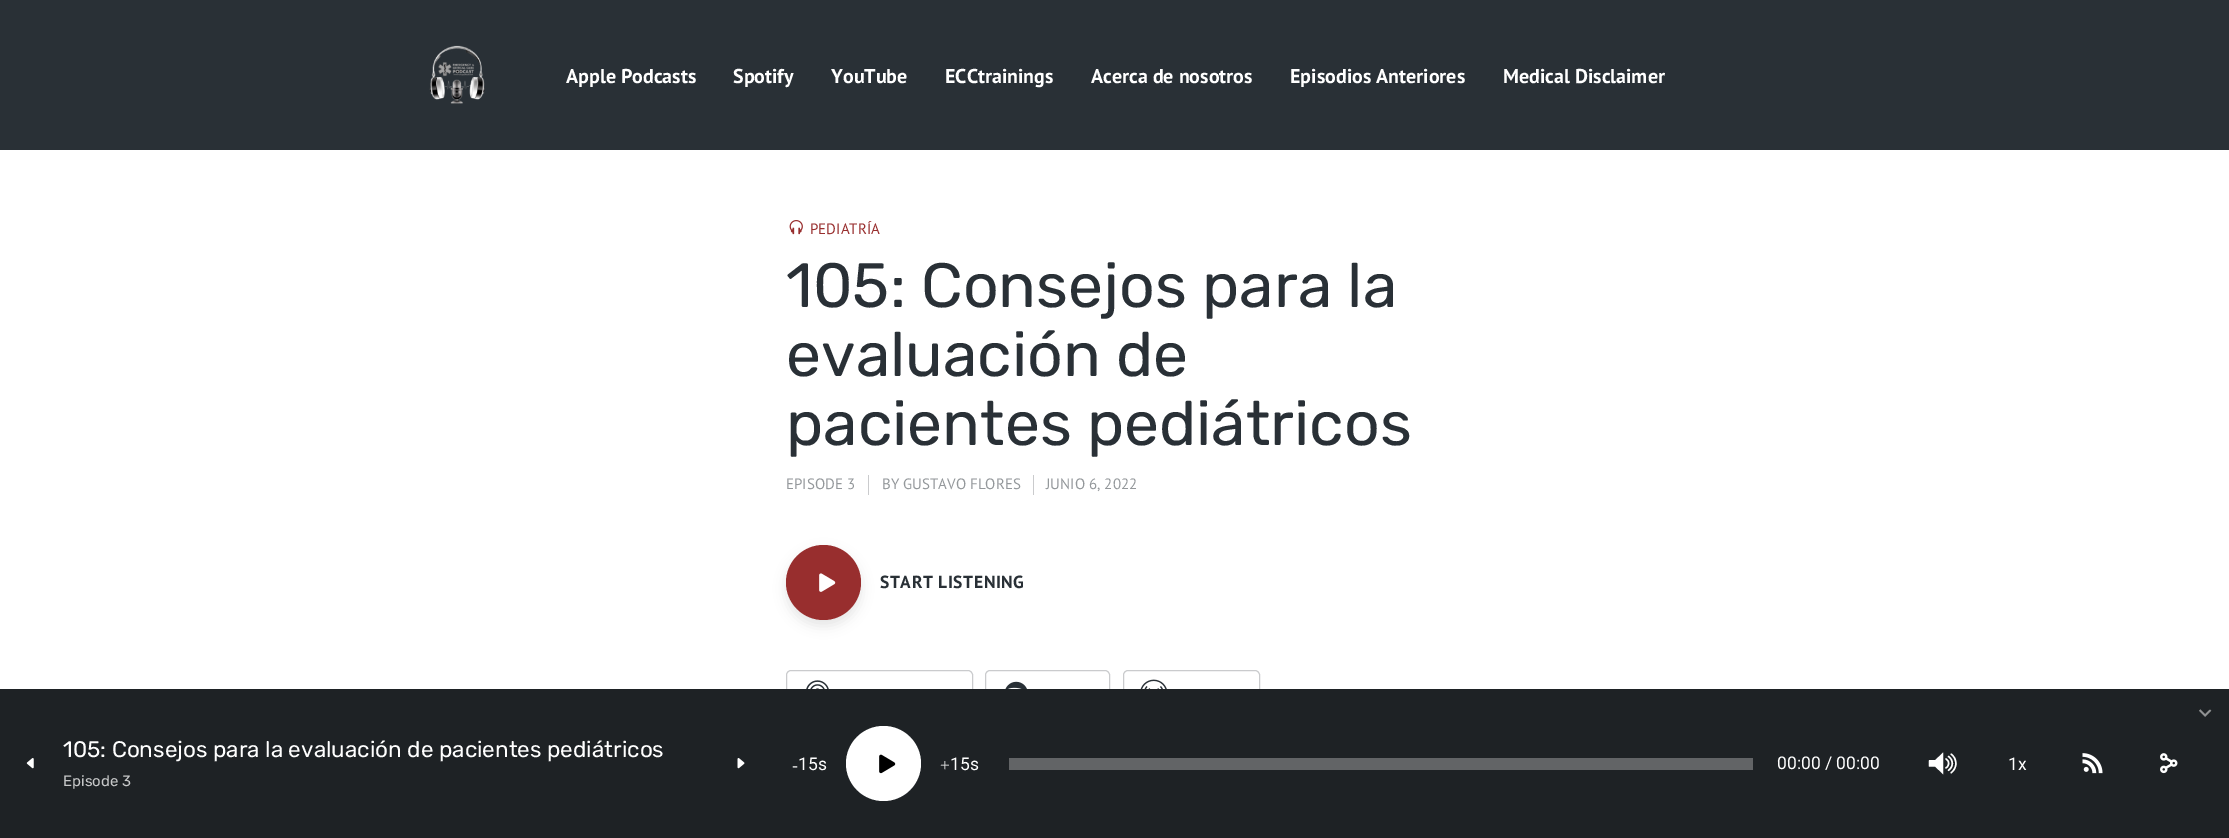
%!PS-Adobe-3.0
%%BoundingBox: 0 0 2229 838
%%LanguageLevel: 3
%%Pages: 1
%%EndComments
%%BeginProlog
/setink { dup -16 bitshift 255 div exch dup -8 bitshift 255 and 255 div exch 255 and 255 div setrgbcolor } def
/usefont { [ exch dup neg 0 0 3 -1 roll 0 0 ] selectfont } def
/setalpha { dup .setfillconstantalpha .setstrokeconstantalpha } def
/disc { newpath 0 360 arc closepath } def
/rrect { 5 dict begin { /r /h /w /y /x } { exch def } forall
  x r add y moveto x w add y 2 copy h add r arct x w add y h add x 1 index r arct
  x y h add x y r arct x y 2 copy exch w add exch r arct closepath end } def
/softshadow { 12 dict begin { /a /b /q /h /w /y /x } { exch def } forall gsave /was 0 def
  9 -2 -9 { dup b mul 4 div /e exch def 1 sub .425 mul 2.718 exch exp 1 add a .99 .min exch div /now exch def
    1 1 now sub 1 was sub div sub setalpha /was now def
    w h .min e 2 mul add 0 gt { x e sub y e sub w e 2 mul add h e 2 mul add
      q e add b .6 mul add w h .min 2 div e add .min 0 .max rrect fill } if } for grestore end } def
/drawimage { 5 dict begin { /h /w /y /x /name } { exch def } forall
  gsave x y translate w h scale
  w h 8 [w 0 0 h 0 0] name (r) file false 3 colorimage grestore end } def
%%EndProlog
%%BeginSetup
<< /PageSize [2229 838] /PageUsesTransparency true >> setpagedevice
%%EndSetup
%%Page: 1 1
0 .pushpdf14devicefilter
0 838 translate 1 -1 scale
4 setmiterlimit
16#FFFFFF setink
0 0 2229 838 rectfill
16#293036 setink
0 0 2229 150 rectfill
(img1.raw) 429 45 56 59 drawimage
/PTSans-Bold 20 usefont
16#FFFFFF setink
[
    [(Apple Podcasts) 566 83]
    [(Spotify) 733 83]
    [(YouTube) 831 83]
    [(ECCtrainings) 945 83]
    [(Acerca de nosotros) 1091 83]
    [(Episodios Anteriores) 1290 83]
    [(Medical Disclaimer) 1503 83]
] { aload pop moveto show } forall
(img2.raw) 789 220 14 15 drawimage
/PTSans-Regular 15 usefont
16#982E2E setink
810 234 moveto (PEDIATRÍA) show
/Rubik-Light 62.5 usefont
16#293036 setink
[
    [(105: Consejos para la) 786 307]
    [(evaluación de) 786 376]
    [(pacientes pediátricos) 786 445]
] { aload pop moveto show } forall
/PTSans-Regular 15 usefont
16#94989B setink
786 489 moveto (EPISODE 3) show
16#CACBCD setink
868 475 1 20 rectfill
16#94989B setink
882 489 moveto (BY GUSTAVO FLORES) show
16#CACBCD setink
1033 475 1 20 rectfill
16#94989B setink
1046 489 moveto (JUNIO 6, 2022) show
16#000000 setink
786 551 75 75 37.5 6 0.1 softshadow
16#982E2E setink
823.5 582.5 37.5 disc fill
(img3.raw) 819 573 17 19 drawimage
/PTSans-Bold 17.5 usefont
16#293036 setink
880 588 moveto 0.6 0 (START LISTENING) ashow
16#CACBCD setink
786.5 670.5 186 49 4.5 rrect stroke
(img4.raw) 806 680 23 9 drawimage
985.5 670.5 124 49 4.5 rrect stroke
(img5.raw) 1005 681 22 8 drawimage
1123.5 670.5 136 49 4.5 rrect stroke
(img6.raw) 1140 679 27 10 drawimage
16#1E2225 setink
0 689 2229 149 rectfill
/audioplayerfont-Regular 25 usefont
16#8F9192 setink
2193 723 moveto (꤅) show
(img7.raw) 26 758 8 11 drawimage
/Rubik-Light 22.5 usefont
16#FFFFFF setink
63 757 moveto (105: Consejos para la evaluación de pacientes pediátricos) show
/Rubik-Light 15 usefont
16#C7C8C9 setink
63 786 moveto (Episode 3) show
(img8.raw) 737 758 8 11 drawimage
/LiberationSerif-Regular 17.5 usefont
16#FFFFFF setink
792 771 moveto (-) show
/Roboto-Regular 17.5 usefont
798 770 moveto (15s) show
883.5 763.5 37.5 disc fill
(img9.raw) 879 754 17 20 drawimage
/LiberationSerif-Regular 17.5 usefont
940 771 moveto (+) show
/Roboto-Regular 17.5 usefont
950 770 moveto (15s) show
16#626466 setink
1009 758 744 12 rectfill
16#FFFFFF setink
1777 769 moveto (00:00 / 00:00) show
/audioplayerfont-Regular 38 usefont
1924 780 moveto (꤂) show
/Roboto-Regular 17.5 usefont
2008 770 moveto (1x) show
(img10.raw) 2082 753 21 21 drawimage
(img11.raw) 2160 753 18 21 drawimage
.poppdf14devicefilter showpage
%%EOF
